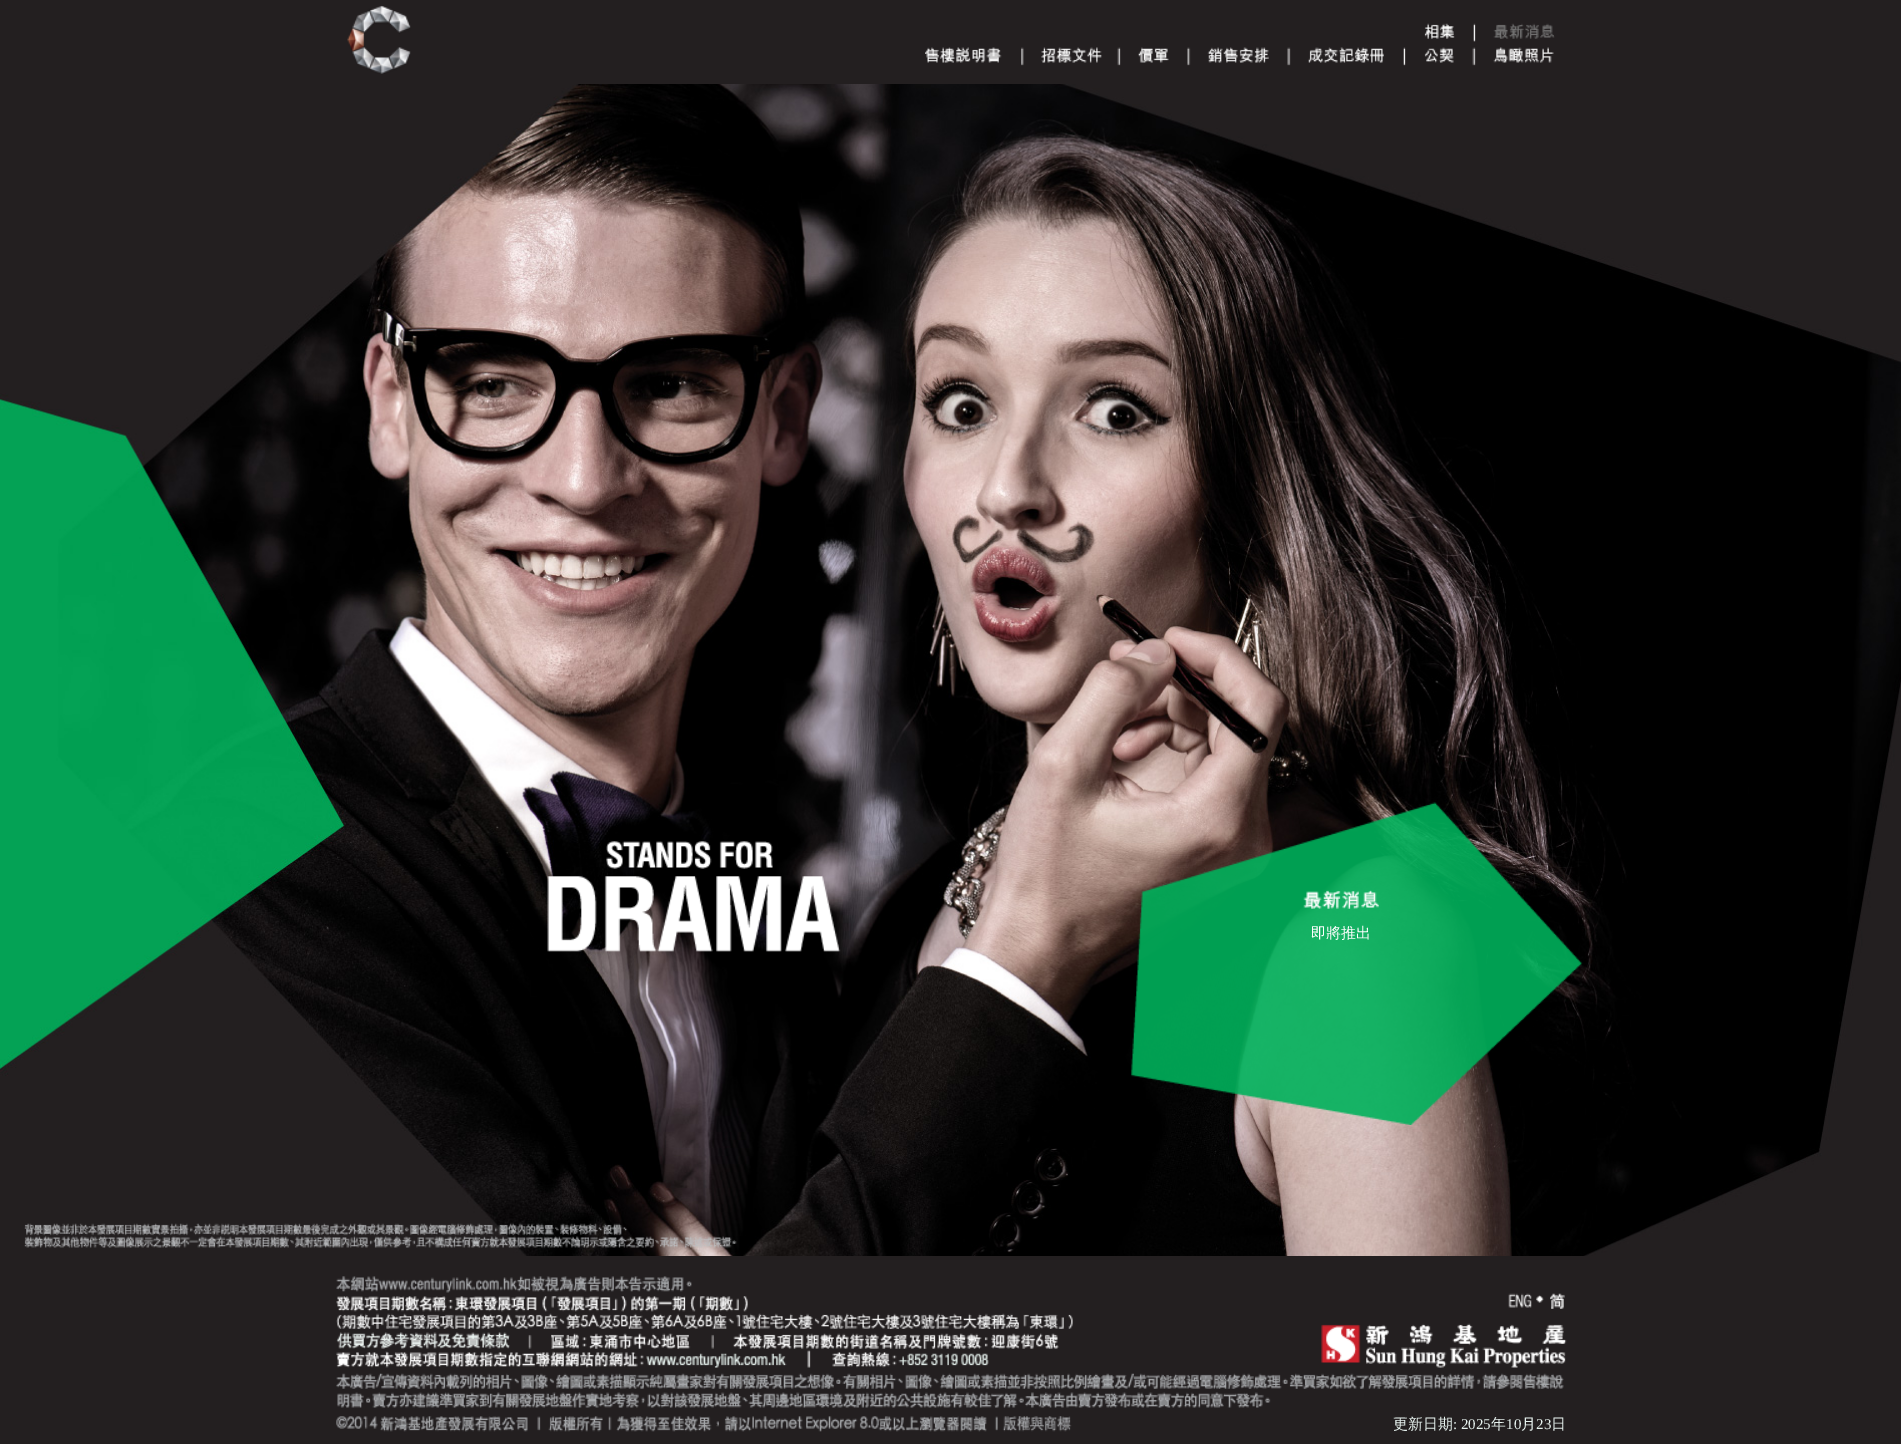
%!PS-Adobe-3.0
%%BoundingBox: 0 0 1901 1444
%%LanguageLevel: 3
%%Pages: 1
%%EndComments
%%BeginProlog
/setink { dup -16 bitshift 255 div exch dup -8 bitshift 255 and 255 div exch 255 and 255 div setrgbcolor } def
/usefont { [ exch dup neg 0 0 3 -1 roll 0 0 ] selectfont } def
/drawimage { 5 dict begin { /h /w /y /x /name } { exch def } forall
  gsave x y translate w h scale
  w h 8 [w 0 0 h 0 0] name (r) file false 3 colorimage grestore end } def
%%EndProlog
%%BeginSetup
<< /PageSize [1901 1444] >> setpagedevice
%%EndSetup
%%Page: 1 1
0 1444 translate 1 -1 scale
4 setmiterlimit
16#FFFFFF setink
0 0 1901 1444 rectfill
16#231F20 setink
0 0 1901 84 rectfill
(img1.raw) 1021 23 455 43 drawimage
(img2.raw) 347 5 64 69 drawimage
(img3.raw) 1424 23 31 16 drawimage
(img4.raw) 1493 23 62 16 drawimage
(img5.raw) 925 47 77 16 drawimage
(img6.raw) 1041 47 61 16 drawimage
(img7.raw) 1138 47 31 16 drawimage
(img8.raw) 1207 47 62 16 drawimage
(img9.raw) 1308 47 76 16 drawimage
(img10.raw) 1424 47 30 16 drawimage
(img11.raw) 1493 47 61 16 drawimage
(img12.raw) 0 84 1901 1172 drawimage
(img13.raw) 547 802 1036 323 drawimage
/WenQuanYiZenHei-Medium 15 usefont
16#FFFFFF setink
1311 938 moveto (即將推出) show
(img14.raw) 24 1223 713 25 drawimage
16#231F20 setink
0 1256 1901 188 rectfill
(img15.raw) 336 1276 1228 156 drawimage
(img16.raw) 1508 1293 24 15 drawimage
(img17.raw) 1536 1295 8 8 drawimage
(img18.raw) 1550 1293 15 16 drawimage
(img19.raw) 336 1332 174 17 drawimage
(img20.raw) 1321 1323 246 45 drawimage
(img21.raw) 1002 1416 70 16 drawimage
16#E6F2EE setink
1393 1429 moveto (更新日期) show
/LiberationSerif-Regular 15 usefont
1453 1429 moveto (: 2025) show
/WenQuanYiZenHei-Medium 15 usefont
1491 1429 moveto (年) show
/LiberationSerif-Regular 15 usefont
1506 1429 moveto (10) show
/WenQuanYiZenHei-Medium 15 usefont
1521 1429 moveto (月) show
/LiberationSerif-Regular 15 usefont
1536 1429 moveto (23) show
/WenQuanYiZenHei-Medium 15 usefont
1551 1429 moveto (日) show
showpage
%%EOF
